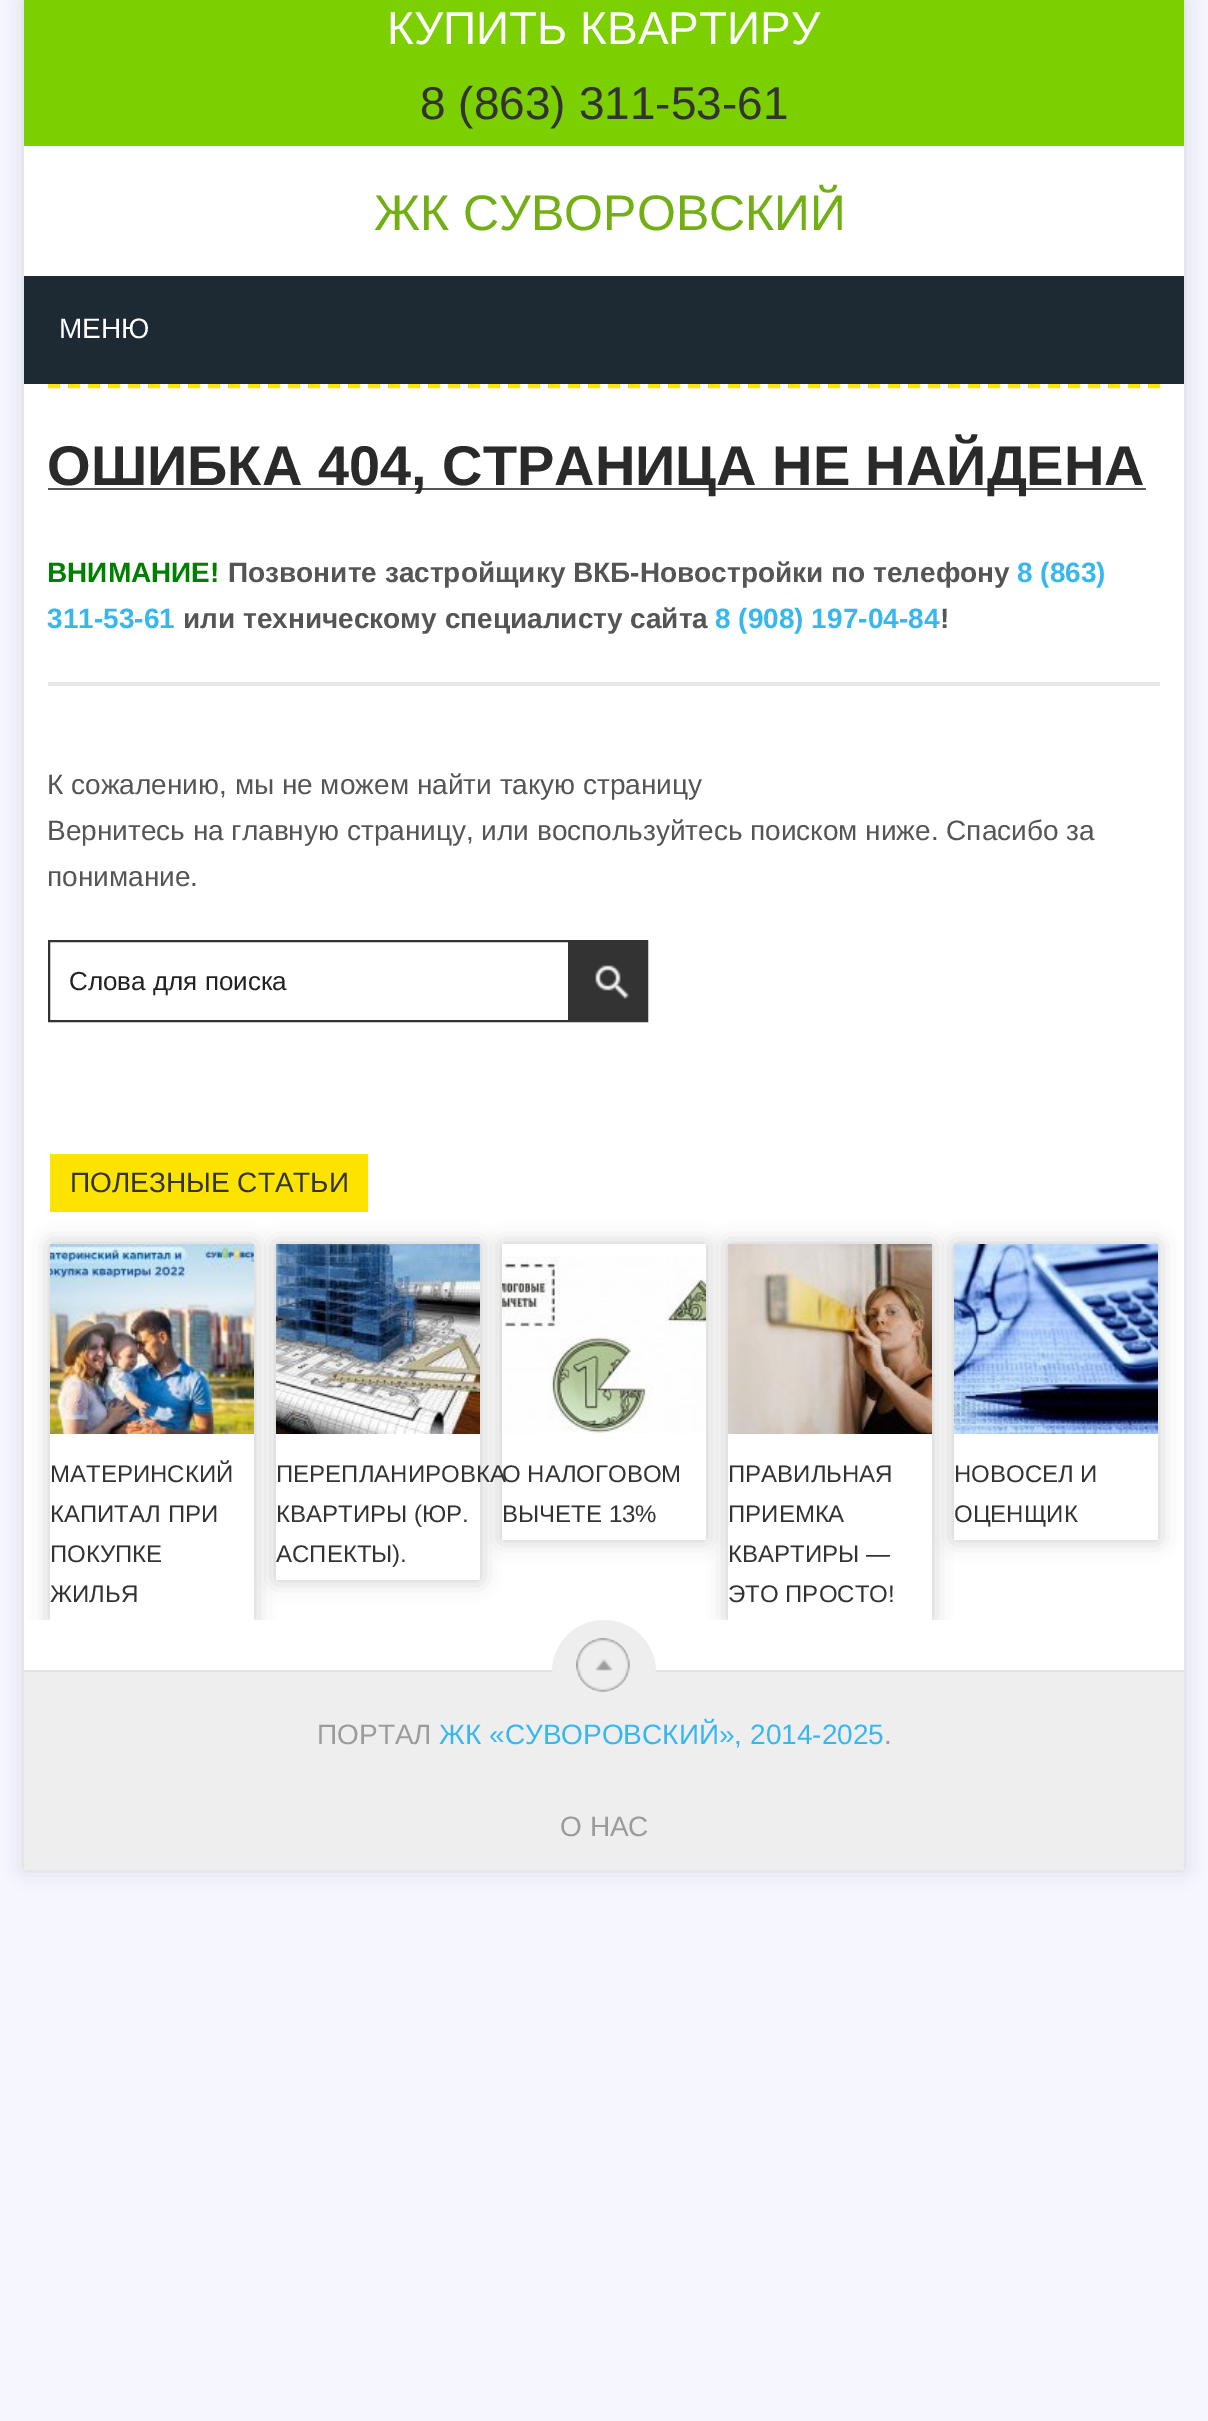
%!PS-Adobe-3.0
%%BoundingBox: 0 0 1208 2421
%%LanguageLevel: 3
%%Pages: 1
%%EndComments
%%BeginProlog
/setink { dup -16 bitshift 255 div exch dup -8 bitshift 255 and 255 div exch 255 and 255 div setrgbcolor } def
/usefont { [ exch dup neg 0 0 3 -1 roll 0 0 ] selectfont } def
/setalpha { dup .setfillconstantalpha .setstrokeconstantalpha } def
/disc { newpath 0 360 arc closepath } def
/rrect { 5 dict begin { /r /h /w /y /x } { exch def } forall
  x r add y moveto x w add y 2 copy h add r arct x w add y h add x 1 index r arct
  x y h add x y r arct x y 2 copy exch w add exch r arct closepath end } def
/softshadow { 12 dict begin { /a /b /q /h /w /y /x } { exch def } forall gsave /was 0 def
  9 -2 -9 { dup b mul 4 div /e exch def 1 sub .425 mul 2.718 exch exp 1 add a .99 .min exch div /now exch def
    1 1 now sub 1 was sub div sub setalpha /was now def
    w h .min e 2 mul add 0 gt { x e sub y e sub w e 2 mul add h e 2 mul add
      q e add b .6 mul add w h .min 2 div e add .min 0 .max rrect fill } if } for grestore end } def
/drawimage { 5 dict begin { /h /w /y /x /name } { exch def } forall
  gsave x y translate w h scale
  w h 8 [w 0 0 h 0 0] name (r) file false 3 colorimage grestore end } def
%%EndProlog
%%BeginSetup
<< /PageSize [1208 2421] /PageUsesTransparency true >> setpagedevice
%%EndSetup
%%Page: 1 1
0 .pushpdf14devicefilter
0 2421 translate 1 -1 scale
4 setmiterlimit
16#F6F6FF setink
0 0 1208 2421 rectfill
16#323232 setink
24 0 1160 1870 0 10 0.17 softshadow
16#FFFFFF setink
24 146 1160 1524 rectfill
16#7CCF00 setink
24 0 1160 146 rectfill
/LiberationSans-Regular 46 usefont
16#FFFFFF setink
387 44 moveto (КУПИТЬ КВАРТИРУ) show
16#333333 setink
420 119 moveto (8 \(863\) 311-53-61) show
/LiberationSans-Regular 50 usefont
16#72AF14 setink
374 230 moveto (ЖК СУВОРОВСКИЙ) show
16#1D2933 setink
24 276 1160 108 rectfill
/LiberationSans-Regular 28 usefont
16#FFFFFF setink
59 338 moveto (МЕНЮ) show
16#FCE400 setink
4 setlinewidth
[12 8] 0 setdash
48 386 moveto 1160 386 lineto stroke
16#555555 setink
48 488 1098 2 rectfill
/LiberationSans-Bold 56 usefont
16#2A2A2A setink
47 485 moveto (ОШИБКА 404, СТРАНИЦА НЕ НАЙДЕНА) show
/LiberationSans-Bold 28 usefont
16#008000 setink
47 582 moveto (ВНИМАНИЕ!) show
16#555555 setink
228 582 moveto (Позвоните застройщику ВКБ-Новостройки по телефону) show
16#38B7EE setink
1017 582 moveto (8 \(863\)) show
47 628 moveto (311-53-61) show
16#555555 setink
183 628 moveto (или техническому специалисту сайта) show
16#38B7EE setink
715 628 moveto (8 \(908\) 197-04-84) show
16#555555 setink
940 628 moveto (!) show
16#E6E6E6 setink
48 682 1112 4 rectfill
/LiberationSans-Regular 28 usefont
16#555555 setink
[
    [(К сожалению, мы не можем найти такую страницу) 47 794]
    [(Вернитесь на главную страницу, или воспользуйтесь поиском ниже. Спасибо за) 47 840]
    [(понимание.) 47 886]
] { aload pop moveto show } forall
16#333333 setink
2 setlinewidth
[] 0 setdash
49 941 598 80 rectstroke
/LiberationSans-Regular 26 usefont
16#222222 setink
69 990 moveto (Слова для поиска) show
16#333333 setink
568 942 78 78 rectfill
(img1.raw) 595 965 34 34 drawimage
16#FCE400 setink
50 1154 318 58 rectfill
/LiberationSans-Regular 28 usefont
16#333333 setink
70 1192 moveto (ПОЛЕЗНЫЕ СТАТЬИ) show
gsave
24 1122 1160 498 rectclip
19 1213 moveto 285 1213 lineto 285 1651 lineto 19 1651 lineto closepath 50 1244 moveto 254 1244 lineto 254 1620 lineto 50 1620 lineto closepath eoclip newpath
16#323232 setink
50 1244 204 376 0 10 0.27 softshadow
grestore
gsave
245 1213 moveto 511 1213 lineto 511 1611 lineto 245 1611 lineto closepath 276 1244 moveto 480 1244 lineto 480 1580 lineto 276 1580 lineto closepath eoclip newpath
16#323232 setink
276 1244 204 336 0 10 0.27 softshadow
grestore
(img2.raw) 50 1244 204 190 drawimage
/LiberationSans-Regular 24 usefont
[
    [(МАТЕРИНСКИЙ) 50 1482]
    [(КАПИТАЛ ПРИ) 50 1522]
    [(ПОКУПКЕ) 50 1562]
    [(ЖИЛЬЯ) 50 1602]
] { aload pop moveto show } forall
gsave
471 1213 moveto 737 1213 lineto 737 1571 lineto 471 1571 lineto closepath 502 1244 moveto 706 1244 lineto 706 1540 lineto 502 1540 lineto closepath eoclip newpath
16#323232 setink
502 1244 204 296 0 10 0.27 softshadow
grestore
(img3.raw) 276 1244 204 190 drawimage
[
    [(ПЕРЕПЛАНИРОВКА) 276 1482]
    [(КВАРТИРЫ \(ЮР.) 276 1522]
    [(АСПЕКТЫ\).) 276 1562]
] { aload pop moveto show } forall
gsave
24 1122 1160 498 rectclip
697 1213 moveto 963 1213 lineto 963 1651 lineto 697 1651 lineto closepath 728 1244 moveto 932 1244 lineto 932 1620 lineto 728 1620 lineto closepath eoclip newpath
16#323232 setink
728 1244 204 376 0 10 0.27 softshadow
grestore
(img4.raw) 502 1256 204 178 drawimage
502 1482 moveto (О НАЛОГОВОМ) show
502 1522 moveto (ВЫЧЕТЕ 13%) show
gsave
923 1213 moveto 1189 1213 lineto 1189 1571 lineto 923 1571 lineto closepath 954 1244 moveto 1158 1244 lineto 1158 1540 lineto 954 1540 lineto closepath eoclip newpath
16#323232 setink
954 1244 204 296 0 10 0.27 softshadow
grestore
(img5.raw) 728 1244 204 190 drawimage
[
    [(ПРАВИЛЬНАЯ) 728 1482]
    [(ПРИЕМКА) 728 1522]
    [(КВАРТИРЫ —) 728 1562]
    [(ЭТО ПРОСТО!) 728 1602]
] { aload pop moveto show } forall
(img6.raw) 954 1244 204 190 drawimage
954 1482 moveto (НОВОСЕЛ И) show
954 1522 moveto (ОЦЕНЩИК) show
16#EEEEEE setink
24 1672 1160 198 rectfill
16#E2E2E2 setink
24 1670 1160 2 rectfill
16#EEEEEE setink
604 1672 52 disc fill
(img7.raw) 576 1638 54 54 drawimage
/LiberationSans-Regular 28 usefont
16#9B9B9B setink
317 1744 moveto (ПОРТАЛ) show
16#38B7EE setink
439 1744 moveto (ЖК «СУВОРОВСКИЙ», 2014-2025) show
16#9B9B9B setink
884 1744 moveto (.) show
560 1836 moveto (О НАС) show
.poppdf14devicefilter showpage
%%EOF
